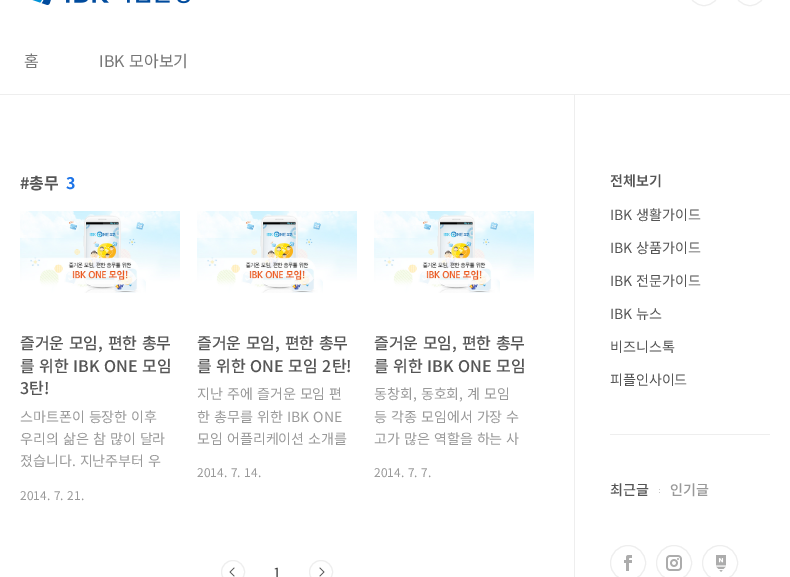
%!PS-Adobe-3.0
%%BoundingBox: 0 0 790 577
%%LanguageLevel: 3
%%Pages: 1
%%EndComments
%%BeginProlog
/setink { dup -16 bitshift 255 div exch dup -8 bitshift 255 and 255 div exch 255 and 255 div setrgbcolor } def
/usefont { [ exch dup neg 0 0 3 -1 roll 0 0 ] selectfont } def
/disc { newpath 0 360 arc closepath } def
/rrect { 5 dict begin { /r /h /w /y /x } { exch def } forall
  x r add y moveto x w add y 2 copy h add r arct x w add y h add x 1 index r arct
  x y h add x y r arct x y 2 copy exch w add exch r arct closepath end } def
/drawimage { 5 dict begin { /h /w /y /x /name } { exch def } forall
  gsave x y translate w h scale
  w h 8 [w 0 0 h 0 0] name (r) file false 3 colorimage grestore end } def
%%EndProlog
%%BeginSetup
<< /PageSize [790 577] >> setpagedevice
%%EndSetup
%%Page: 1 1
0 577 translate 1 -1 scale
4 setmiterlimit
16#FFFFFF setink
0 0 790 577 rectfill
16#EEEEEE setink
0 94 790 1 rectfill
(img1.raw) 32 0 158 5 drawimage
689.5 -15.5 29 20 14.5 rrect stroke
16#FFFFFF setink
688.5 -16.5 31 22 15.5 rrect gsave fill grestore
16#EEEEEE setink
stroke
734.5 -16.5 31 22 15.5 rrect stroke
/NotoSansKR-Regular 16 usefont
16#777777 setink
24 67 moveto (홈) show
99 67 moveto 1 0 32 (IBK 모아보기) widthshow
/NotoSansKR-Bold 16 usefont
16#555555 setink
20 189 moveto (#총무) show
16#1D74E8 setink
66 189 moveto (3) show
(img2.raw) 20 211 160 82 drawimage
/NotoSansKR-Medium 16 usefont
16#555555 setink
20 349 moveto 1 0 32 (즐거운 모임, 편한 총무) widthshow
20 372 moveto 1 0 32 (를 위한 IBK ONE 모임) widthshow
20 394 moveto (3탄!) show
/NotoSansKR-Regular 14 usefont
16#999999 setink
20 422 moveto 1 0 32 (스마트폰이 등장한 이후) widthshow
20 444 moveto 1 0 32 (우리의 삶은 참 많이 달라) widthshow
20 466 moveto 1 0 32 (졌습니다. 지난주부터 우) widthshow
/NotoSansKR-Regular 12 usefont
20 500 moveto 1 0 32 (2014. 7. 21.) widthshow
(img2.raw) 197 211 160 82 drawimage
/NotoSansKR-Medium 16 usefont
16#555555 setink
197 349 moveto 1 0 32 (즐거운 모임, 편한 총무) widthshow
197 372 moveto 1 0 32 (를 위한 ONE 모임 2탄!) widthshow
/NotoSansKR-Regular 14 usefont
16#999999 setink
197 399 moveto 1 0 32 (지난 주에 즐거운 모임 편) widthshow
197 422 moveto 1 0 32 (한 총무를 위한 IBK ONE) widthshow
197 444 moveto 1 0 32 (모임 어플리케이션 소개를) widthshow
/NotoSansKR-Regular 12 usefont
197 477 moveto 1 0 32 (2014. 7. 14.) widthshow
(img2.raw) 374 211 160 82 drawimage
/NotoSansKR-Medium 16 usefont
16#555555 setink
374 349 moveto 1 0 32 (즐거운 모임, 편한 총무) widthshow
374 372 moveto 1 0 32 (를 위한 IBK ONE 모임) widthshow
/NotoSansKR-Regular 14 usefont
16#999999 setink
374 399 moveto 1 0 32 (동창회, 동호회, 계 모임) widthshow
374 422 moveto 1 0 32 (등 각종 모임에서 가장 수) widthshow
374 444 moveto 1 0 32 (고가 많은 역할을 하는 사) widthshow
/NotoSansKR-Regular 12 usefont
374 477 moveto 1 0 32 (2014. 7. 7.) widthshow
(img3.raw) 229 567 6 10 drawimage
16#EEEEEE setink
233 572 11.5 disc stroke
/NotoSansKR-Regular 14 usefont
16#333333 setink
273 578 moveto (1) show
(img4.raw) 319 567 6 10 drawimage
16#EEEEEE setink
321 572 11.5 disc stroke
574 95 1 482 rectfill
/NotoSansKR-SemiBold 14 usefont
16#555555 setink
610 186 moveto (전체보기) show
/NotoSansKR-Regular 14 usefont
610 220 moveto 1 0 32 (IBK 생활가이드) widthshow
610 253 moveto 1 0 32 (IBK 상품가이드) widthshow
610 286 moveto 1 0 32 (IBK 전문가이드) widthshow
610 319 moveto 1 0 32 (IBK 뉴스) widthshow
610 352 moveto (비즈니스톡) show
610 385 moveto (피플인사이드) show
16#EEEEEE setink
610 434 160 1 rectfill
/NotoSansKR-Medium 14 usefont
16#555555 setink
610 495 moveto (최근글) show
(img5.raw) 659 489 1 4 drawimage
16#999999 setink
670 495 moveto (인기글) show
(img6.raw) 624 555 8 16 drawimage
16#EEEEEE setink
628 563 17.5 disc stroke
(img7.raw) 666 555 16 16 drawimage
674 563 17.5 disc stroke
(img8.raw) 716 555 10 17 drawimage
720 563 17.5 disc stroke
showpage
%%EOF
